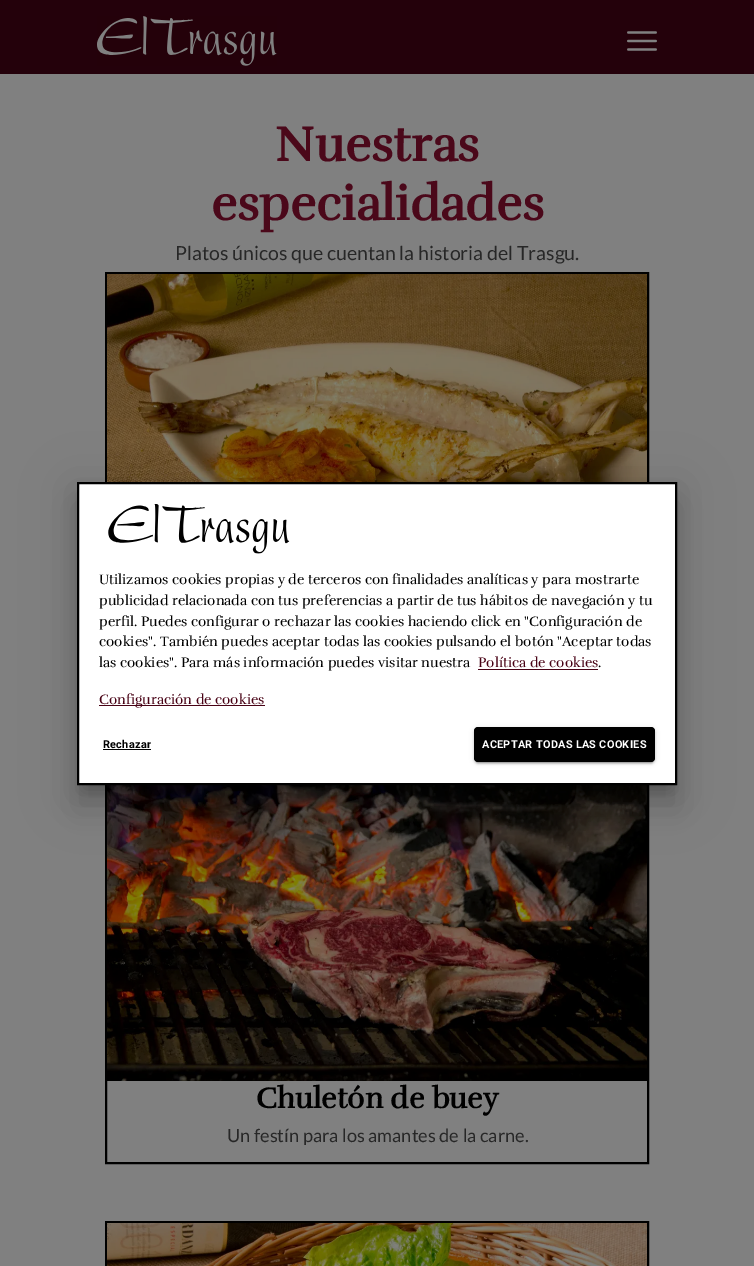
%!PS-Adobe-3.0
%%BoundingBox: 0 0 754 1266
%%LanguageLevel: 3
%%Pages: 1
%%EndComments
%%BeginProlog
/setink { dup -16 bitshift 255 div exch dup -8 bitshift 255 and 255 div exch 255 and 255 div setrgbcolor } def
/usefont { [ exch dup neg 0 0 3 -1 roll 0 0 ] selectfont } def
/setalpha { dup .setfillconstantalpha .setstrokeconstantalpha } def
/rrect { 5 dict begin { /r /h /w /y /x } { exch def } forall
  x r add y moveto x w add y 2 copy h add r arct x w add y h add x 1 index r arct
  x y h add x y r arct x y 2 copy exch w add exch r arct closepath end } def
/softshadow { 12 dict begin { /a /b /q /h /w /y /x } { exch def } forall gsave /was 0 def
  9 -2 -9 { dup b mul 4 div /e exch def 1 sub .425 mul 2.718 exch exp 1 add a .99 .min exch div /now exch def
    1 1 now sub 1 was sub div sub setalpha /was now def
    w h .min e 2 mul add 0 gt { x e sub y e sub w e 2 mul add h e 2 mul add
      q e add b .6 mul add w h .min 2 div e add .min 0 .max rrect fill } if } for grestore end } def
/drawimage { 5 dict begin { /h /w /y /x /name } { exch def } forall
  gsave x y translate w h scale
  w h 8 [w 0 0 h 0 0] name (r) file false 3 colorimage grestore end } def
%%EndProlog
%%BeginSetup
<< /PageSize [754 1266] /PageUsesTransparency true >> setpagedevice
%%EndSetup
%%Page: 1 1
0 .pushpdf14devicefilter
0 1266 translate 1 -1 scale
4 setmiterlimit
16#808080 setink
0 0 754 1266 rectfill
16#24010B setink
0 0 754 74 rectfill
(img1.raw) 97 16 180 50 drawimage
(img2.raw) 627 31 30 20 drawimage
/Rufina-Bold 49.5 usefont
16#4B081A setink
275 161 moveto (Nuestras) show
211 220 moveto (especialidades) show
/Lato-Regular 19.5 usefont
16#272727 setink
175 260 moveto (Platos únicos que cuentan la historia del Trasgu.) show
16#000000 setink
2 setlinewidth
106 273 542 416 rectstroke
(img3.raw) 107 274 540 208 drawimage
106 748 542 415 rectstroke
(img4.raw) 107 785 540 296 drawimage
/Rufina-Bold 29.5 usefont
256 1108 moveto (Chuletón de buey) show
/Lato-Regular 18.2 usefont
16#272727 setink
227 1142 moveto (Un festín para los amantes de la carne.) show
16#000000 setink
106 1222 542 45 rectstroke
(img5.raw) 107 1223 540 43 drawimage
69 483 616 319 0 23 0.12 softshadow
74 503 606 309 0 19 0.14 softshadow
84 500 586 289 0 7.5 0.2 softshadow
16#FFFFFF setink
78 483 moveto 676 483 lineto 676 784 lineto 78 784 lineto closepath gsave fill grestore
16#000000 setink
stroke
(img6.raw) 108 504 182 50 drawimage
/Rufina-Regular 14 usefont
[
    [(Utilizamos cookies propias y de terceros con finalidades analíticas y para mostrarte) 99 584]
    [(publicidad relacionada con tus preferencias a partir de tus hábitos de navegación y tu) 99 605]
    [(perfil. Puedes configurar o rechazar las cookies haciendo click en "Configuración de) 99 626]
    [(cookies". También puedes aceptar todas las cookies pulsando el botón "Aceptar todas) 99 646]
    [(las cookies". Para más información puedes visitar nuestra) 99 667]
] { aload pop moveto show } forall
16#480215 setink
478 667 moveto (Política de cookies) show
478 669 120 1 rectfill
16#000000 setink
598 667 moveto (.) show
16#480215 setink
99 705 166 1 rectfill
99 704 moveto (Configuración de cookies) show
/Roboto-Bold 10.9 usefont
16#000000 setink
103 748 moveto 0.3 0 (Rechazar) ashow
103 749 48 1 rectfill
474 728 181 35 4 2.5 0.12 softshadow
474 729 181 35 4 1 0.14 softshadow
476 732 177 31 2 0.5 0.2 softshadow
474 727 181 35 4 rrect fill
16#FFFFFF setink
482 748 moveto 0.3 0 (ACEPTAR TODAS LAS COOKIES) ashow
.poppdf14devicefilter showpage
%%EOF
